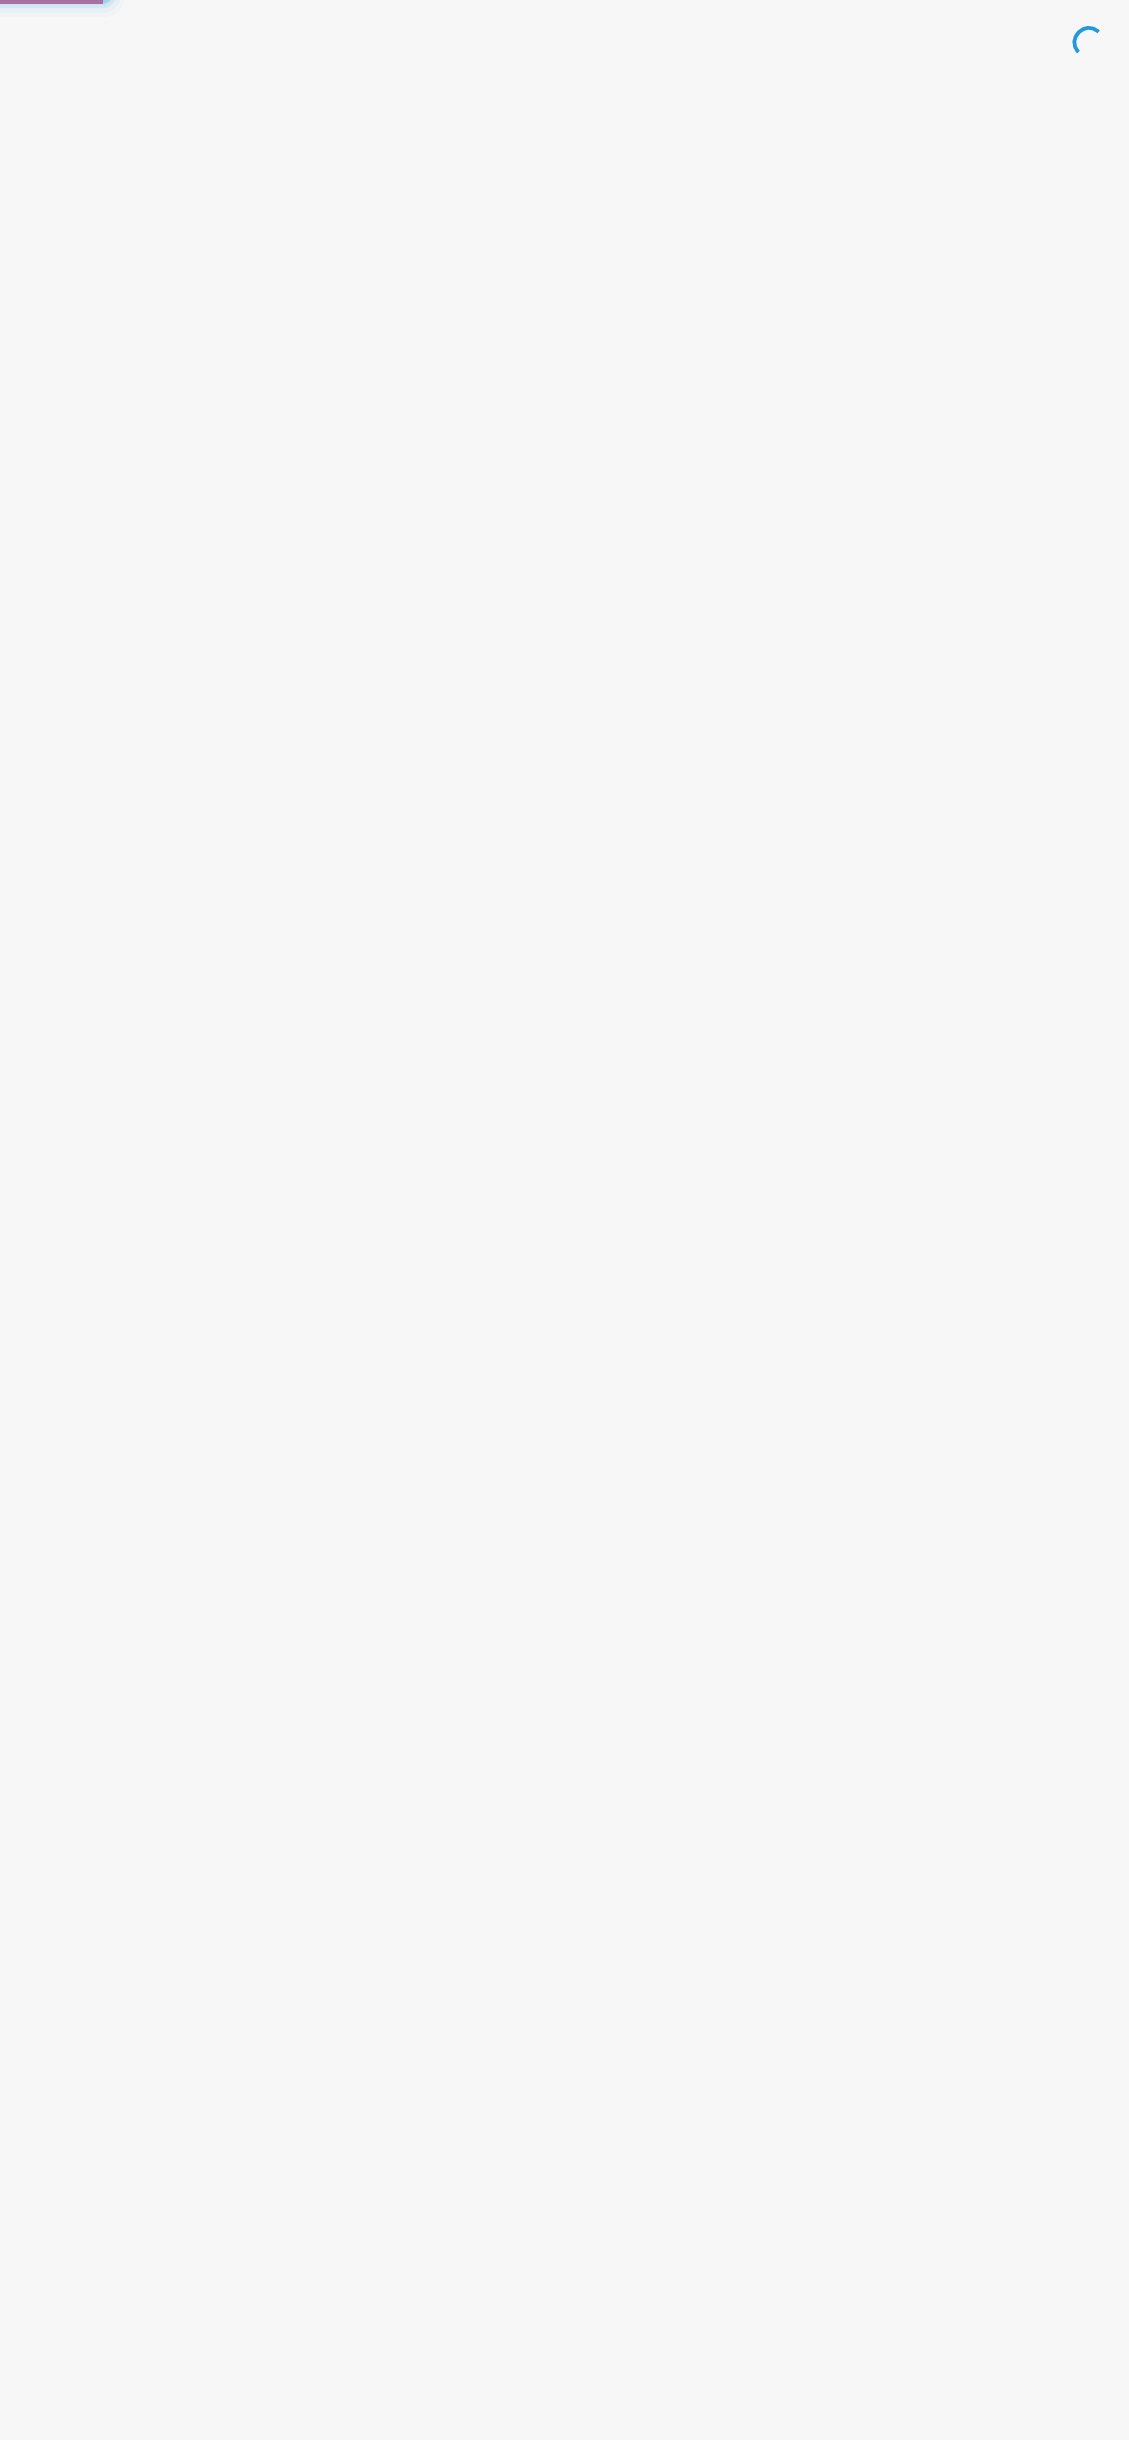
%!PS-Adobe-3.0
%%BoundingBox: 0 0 1129 2440
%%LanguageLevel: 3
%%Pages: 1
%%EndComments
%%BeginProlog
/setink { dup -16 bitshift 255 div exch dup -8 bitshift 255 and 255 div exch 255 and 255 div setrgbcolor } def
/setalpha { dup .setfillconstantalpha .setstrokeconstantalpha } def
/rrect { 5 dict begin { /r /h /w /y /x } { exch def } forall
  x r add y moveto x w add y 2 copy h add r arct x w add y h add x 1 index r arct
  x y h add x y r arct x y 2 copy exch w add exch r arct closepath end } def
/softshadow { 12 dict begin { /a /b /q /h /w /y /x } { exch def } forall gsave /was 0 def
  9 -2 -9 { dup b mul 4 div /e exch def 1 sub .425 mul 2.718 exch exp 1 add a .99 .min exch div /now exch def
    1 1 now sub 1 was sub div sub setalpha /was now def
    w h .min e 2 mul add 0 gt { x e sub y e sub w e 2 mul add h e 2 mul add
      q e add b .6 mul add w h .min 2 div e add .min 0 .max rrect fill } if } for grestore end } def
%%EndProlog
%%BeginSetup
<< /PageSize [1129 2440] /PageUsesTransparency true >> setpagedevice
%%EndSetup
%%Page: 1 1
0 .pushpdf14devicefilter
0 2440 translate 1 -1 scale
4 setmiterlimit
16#F7F7F7 setink
0 0 1129 2440 rectfill
16#FF547B setink
0 0 103 4 rectfill
16#2299DD setink
-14 -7 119 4 0 4.5 1 softshadow
-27 -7 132 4 0 9 1 softshadow
3.5 setlinewidth
1078.5 52 moveto 1065.5 39 1085.5 19 1098.5 32 curveto stroke
.poppdf14devicefilter showpage
%%EOF
